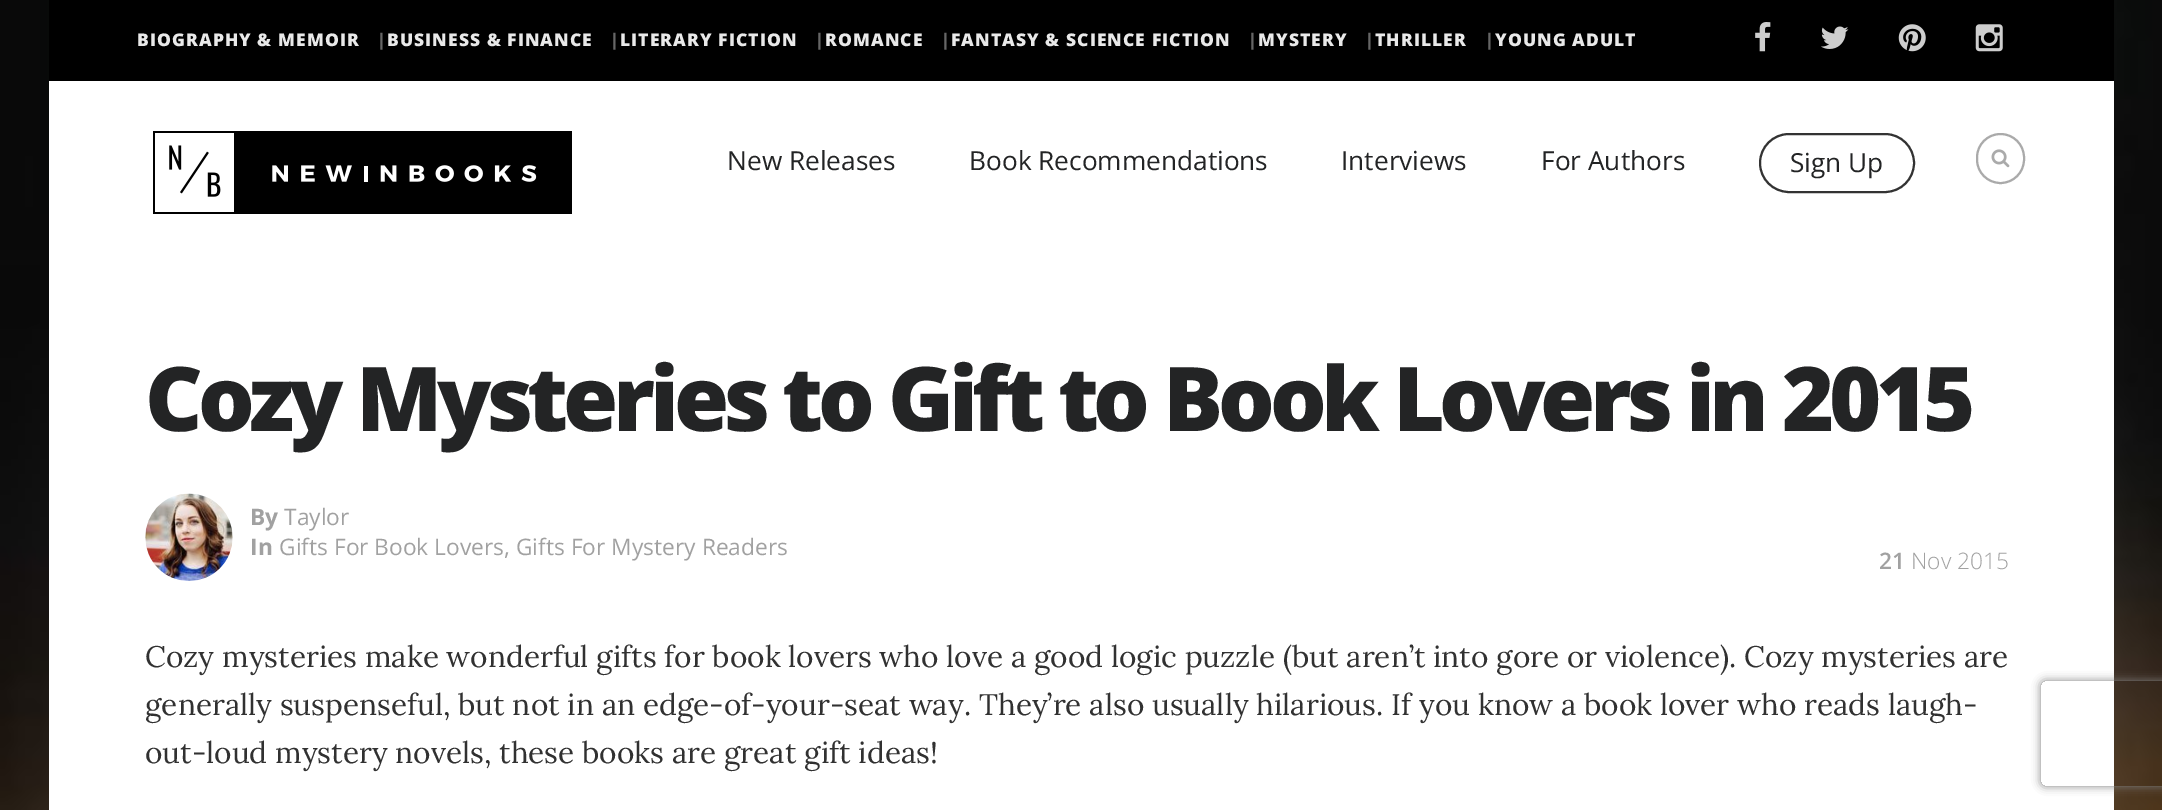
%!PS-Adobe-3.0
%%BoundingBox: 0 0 2162 810
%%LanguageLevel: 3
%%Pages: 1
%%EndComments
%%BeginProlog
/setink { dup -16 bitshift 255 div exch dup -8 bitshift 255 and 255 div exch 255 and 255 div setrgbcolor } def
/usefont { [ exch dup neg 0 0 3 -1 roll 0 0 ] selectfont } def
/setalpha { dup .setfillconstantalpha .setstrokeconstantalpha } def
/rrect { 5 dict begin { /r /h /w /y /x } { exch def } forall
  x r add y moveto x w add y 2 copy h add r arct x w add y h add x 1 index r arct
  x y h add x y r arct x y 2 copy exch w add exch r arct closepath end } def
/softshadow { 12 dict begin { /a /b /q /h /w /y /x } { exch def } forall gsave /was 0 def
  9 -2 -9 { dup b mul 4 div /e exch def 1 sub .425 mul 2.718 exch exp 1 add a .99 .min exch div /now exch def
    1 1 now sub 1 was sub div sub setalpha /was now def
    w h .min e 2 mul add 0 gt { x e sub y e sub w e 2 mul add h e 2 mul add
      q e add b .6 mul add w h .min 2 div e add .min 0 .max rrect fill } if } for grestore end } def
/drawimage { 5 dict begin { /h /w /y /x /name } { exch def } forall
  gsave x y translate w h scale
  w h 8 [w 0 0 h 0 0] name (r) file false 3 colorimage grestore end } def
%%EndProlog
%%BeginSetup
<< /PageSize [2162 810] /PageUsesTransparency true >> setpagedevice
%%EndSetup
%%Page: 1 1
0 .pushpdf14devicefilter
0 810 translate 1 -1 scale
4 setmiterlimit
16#FFFFFF setink
0 0 2162 810 rectfill
(img1.raw) 0 0 2162 810 drawimage
49 81 2065 729 rectfill
16#000000 setink
49 0 2065 81 rectfill
/OpenSans-ExtraBold 17.5 usefont
16#E9E9E9 setink
137 46 moveto 1.05 0 (BIOGRAPHY & MEMOIR) ashow
16#666666 setink
377 46 moveto 1.05 0 (|) ashow
16#E9E9E9 setink
387 46 moveto 1.05 0 (BUSINESS & FINANCE) ashow
16#666666 setink
610 46 moveto 1.05 0 (|) ashow
16#E9E9E9 setink
620 46 moveto 1.05 0 (LITERARY FICTION) ashow
16#666666 setink
815 46 moveto 1.05 0 (|) ashow
16#E9E9E9 setink
825 46 moveto 1.05 0 (ROMANCE) ashow
16#666666 setink
941 46 moveto 1.05 0 (|) ashow
16#E9E9E9 setink
951 46 moveto 1.05 0 (FANTASY & SCIENCE FICTION) ashow
16#666666 setink
1248 46 moveto 1.05 0 (|) ashow
16#E9E9E9 setink
1258 46 moveto 1.05 0 (MYSTERY) ashow
16#666666 setink
1365 46 moveto 1.05 0 (|) ashow
16#E9E9E9 setink
1375 46 moveto 1.05 0 (THRILLER) ashow
16#666666 setink
1485 46 moveto 1.05 0 (|) ashow
16#E9E9E9 setink
1495 46 moveto 1.05 0 (YOUNG ADULT) ashow
(img2.raw) 1755 22 16 30 drawimage
(img3.raw) 1821 26 28 23 drawimage
(img4.raw) 1898 24 28 28 drawimage
(img5.raw) 1975 24 28 28 drawimage
(img6.raw) 153 131 419 83 drawimage
/OpenSans-Regular 26.25 usefont
16#232425 setink
[
    [(New Releases) 727 170]
    [(Book Recommendations) 969 170]
    [(Interviews) 1341 170]
    [(For Authors) 1541 170]
] { aload pop moveto show } forall
16#333333 setink
2 setlinewidth
1760 134 154 58 29 rrect stroke
16#232425 setink
1790 172 moveto (Sign Up) show
16#AAAAAA setink
1977 134 47 49 23.5 rrect stroke
(img7.raw) 1991 149 19 19 drawimage
/OpenSans-ExtraBold 89.25 usefont
16#232425 setink
145 431 moveto -5.25 0 (Cozy Mysteries to Gift to Book Lovers in 2015) ashow
(img8.raw) 145 493 88 88 drawimage
/OpenSans-Bold 22.75 usefont
16#A1A1A1 setink
250 525 moveto (By) show
/OpenSans-Regular 22.75 usefont
284 525 moveto (Taylor) show
/OpenSans-Bold 22.75 usefont
250 555 moveto (In) show
/OpenSans-Regular 22.75 usefont
279 555 moveto (Gifts For Book Lovers, Gifts For Mystery Readers) show
/OpenSans-SemiBold 22.75 usefont
1879 569 moveto (21) show
/OpenSans-Light 22.75 usefont
1911 569 moveto (Nov 2015) show
/Lora-Regular 29.75 usefont
16#313131 setink
[
    [(Cozy mysteries make wonderful gifts for book lovers who love a good logic puzzle \(but aren’t into gore or violence\). Cozy mysteries are) 145 667]
    [(generally suspenseful, but not in an edge-of-your-seat way. They’re also usually hilarious. If you know a book lover who reads laugh-) 145 715]
    [(out-loud mystery novels, these books are great gift ideas!) 145 763]
] { aload pop moveto show } forall
gsave
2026 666 moveto 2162 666 lineto 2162 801 lineto 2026 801 lineto closepath 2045 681 moveto 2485 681 lineto 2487 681 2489 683 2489 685 curveto 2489 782 lineto 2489 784 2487 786 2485 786 curveto 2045 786 lineto 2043 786 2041 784 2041 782 curveto 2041 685 lineto 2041 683 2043 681 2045 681 curveto closepath eoclip newpath
16#808080 setink
2041 681 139 105 4 4.5 1 softshadow
grestore
.poppdf14devicefilter showpage
%%EOF
